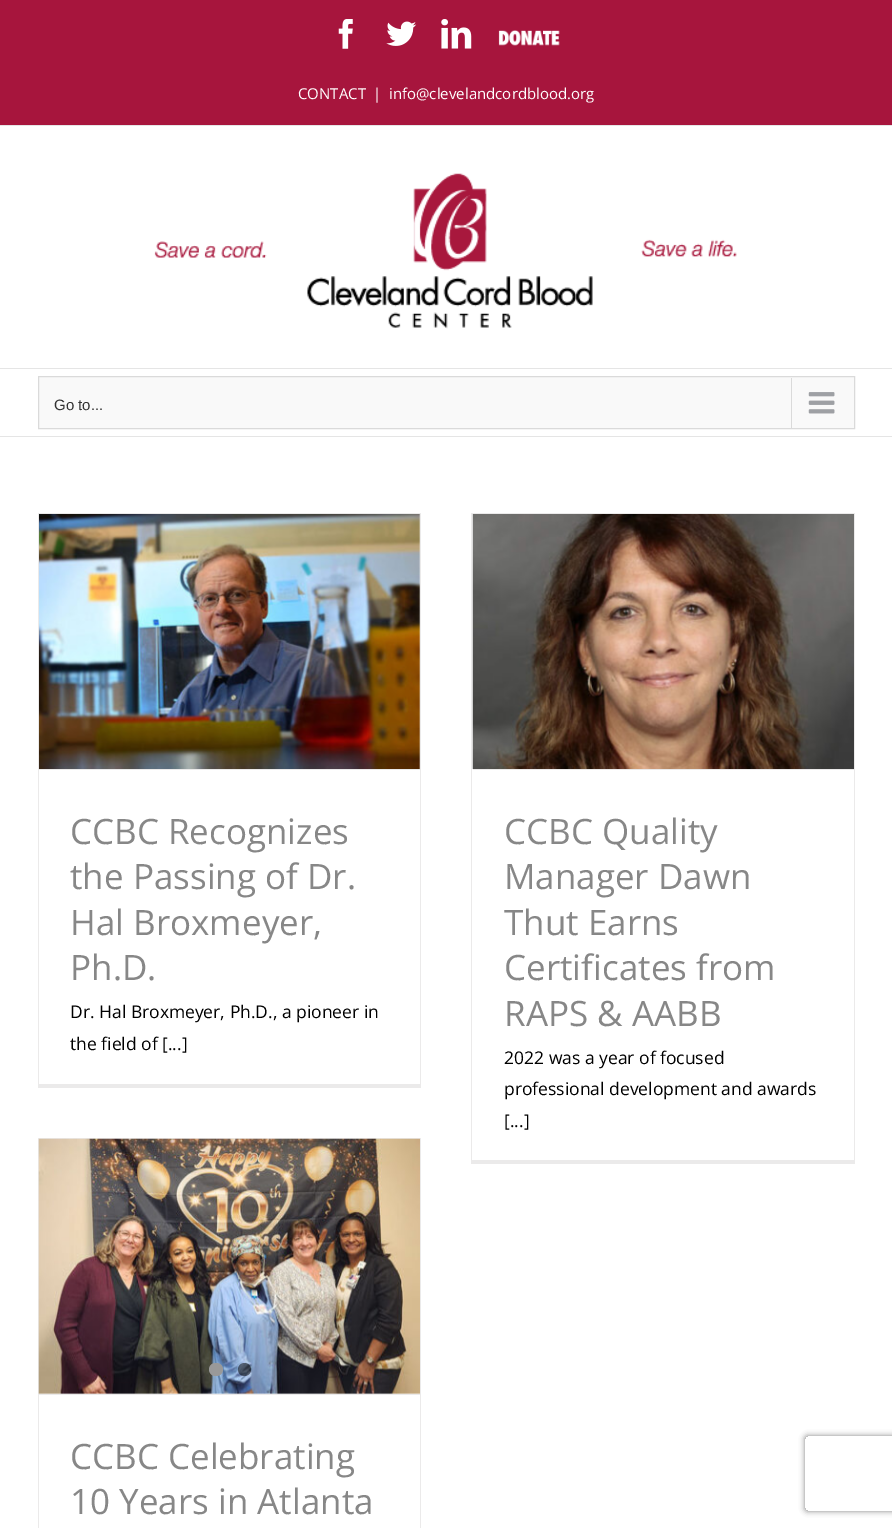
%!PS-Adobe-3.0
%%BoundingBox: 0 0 892 1528
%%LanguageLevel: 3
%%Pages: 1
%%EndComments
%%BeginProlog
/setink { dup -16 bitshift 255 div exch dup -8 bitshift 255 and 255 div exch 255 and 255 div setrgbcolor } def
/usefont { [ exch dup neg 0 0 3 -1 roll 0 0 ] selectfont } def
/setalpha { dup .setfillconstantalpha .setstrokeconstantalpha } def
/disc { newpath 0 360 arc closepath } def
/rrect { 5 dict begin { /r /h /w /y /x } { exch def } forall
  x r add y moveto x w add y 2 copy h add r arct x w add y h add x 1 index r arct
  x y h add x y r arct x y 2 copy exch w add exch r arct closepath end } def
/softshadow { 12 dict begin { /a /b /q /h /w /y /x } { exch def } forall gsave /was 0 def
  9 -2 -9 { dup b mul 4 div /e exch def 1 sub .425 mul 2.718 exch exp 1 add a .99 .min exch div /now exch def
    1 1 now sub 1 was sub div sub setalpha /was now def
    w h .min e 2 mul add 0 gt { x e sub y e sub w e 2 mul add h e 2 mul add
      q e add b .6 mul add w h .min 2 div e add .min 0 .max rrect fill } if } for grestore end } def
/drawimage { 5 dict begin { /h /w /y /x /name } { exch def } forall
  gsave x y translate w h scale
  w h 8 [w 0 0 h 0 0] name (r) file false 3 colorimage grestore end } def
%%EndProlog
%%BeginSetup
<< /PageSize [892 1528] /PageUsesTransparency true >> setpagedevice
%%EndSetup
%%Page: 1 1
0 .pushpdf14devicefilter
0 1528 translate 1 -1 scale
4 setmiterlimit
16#FFFFFF setink
0 0 892 1528 rectfill
16#A7153D setink
0 0 892 125 rectfill
16#E5E5E5 setink
0 125 892 1 rectfill
(img1.raw) 338 19 15 30 drawimage
(img2.raw) 386 21 31 25 drawimage
(img3.raw) 441 19 31 30 drawimage
(img4.raw) 498 30 62 16 drawimage
/OpenSans-Regular 15 usefont
16#FFFFFF setink
[
    [(CONTACT) 298 99]
    [(|) 373 99]
    [(info@clevelandcordblood.org) 389 99]
] { aload pop moveto show } forall
16#E5E5E5 setink
0 368 892 1 rectfill
(img5.raw) 154 173 583 156 drawimage
0 436 892 1 rectfill
16#F9F9F9 setink
38.5 376.5 moveto 854.5 376.5 lineto 854.5 428.5 lineto 38.5 428.5 lineto closepath gsave fill grestore
16#DADADA setink
stroke
/LiberationSans-Regular 15 usefont
16#333333 setink
54 410 moveto (Go to...) show
16#DADADA setink
791 378 1 50 rectfill
(img6.raw) 808 392 27 22 drawimage
[
    [38 513 383 1 16#EBEAEA]
    [420 513 1 575 16#EBEAEA]
    [38 1084 383 4 16#EBEAEA]
    [38 513 1 575 16#EBEAEA]
    [39 769 381 1 16#EBEAEA]
] { aload pop setink rectfill } forall
(img7.raw) 39 514 381 255 drawimage
/OpenSans-Regular 35 usefont
16#878787 setink
[
    [(CCBC Recognizes) 70 844]
    [(the Passing of Dr.) 70 889]
    [(Hal Broxmeyer,) 70 935]
    [(Ph.D.) 70 980]
] { aload pop moveto show } forall
/OpenSans-Regular 17.5 usefont
16#000000 setink
70 1018 moveto (Dr. Hal Broxmeyer, Ph.D., a pioneer in) show
70 1050 moveto (the field of [...]) show
[
    [471 513 384 1 16#EBEAEA]
    [854 513 1 651 16#EBEAEA]
    [471 1160 384 4 16#EBEAEA]
    [471 513 1 651 16#EBEAEA]
    [473 769 381 1 16#EBEAEA]
] { aload pop setink rectfill } forall
(img8.raw) 472 514 382 255 drawimage
/OpenSans-Regular 35 usefont
16#878787 setink
[
    [(CCBC Quality) 504 844]
    [(Manager Dawn) 504 889]
    [(Thut Earns) 504 935]
    [(Certificates from) 504 980]
    [(RAPS & AABB) 504 1026]
] { aload pop moveto show } forall
/OpenSans-Regular 17.5 usefont
16#000000 setink
[
    [(2022 was a year of focused) 504 1064]
    [(professional development and awards) 504 1095]
    [([...]) 504 1127]
] { aload pop moveto show } forall
[
    [38 1138 383 1 16#EBEAEA]
    [420 1138 1 390 16#EBEAEA]
    [38 1138 1 390 16#EBEAEA]
    [39 1394 381 1 16#EBEAEA]
] { aload pop setink rectfill } forall
(img9.raw) 38 1138 382 256 drawimage
16#999999 setink
209 1363 14 13 6.5 rrect fill
0.5 setalpha
16#000000 setink
244.5 1369.5 6.5 disc fill
/OpenSans-Regular 35 usefont
1 setalpha
16#878787 setink
70 1469 moveto (CCBC Celebrating) show
70 1514 moveto (10 Years in Atlanta) show
gsave
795 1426 moveto 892 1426 lineto 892 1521 lineto 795 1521 lineto closepath 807.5 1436 moveto 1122.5 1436 lineto 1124 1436 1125 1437 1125 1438.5 curveto 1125 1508.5 lineto 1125 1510 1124 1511 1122.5 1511 curveto 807.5 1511 lineto 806 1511 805 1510 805 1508.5 curveto 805 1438.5 lineto 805 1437 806 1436 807.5 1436 curveto closepath eoclip newpath
16#808080 setink
805 1436 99 75 2.5 3 1 softshadow
grestore
.poppdf14devicefilter showpage
%%EOF
